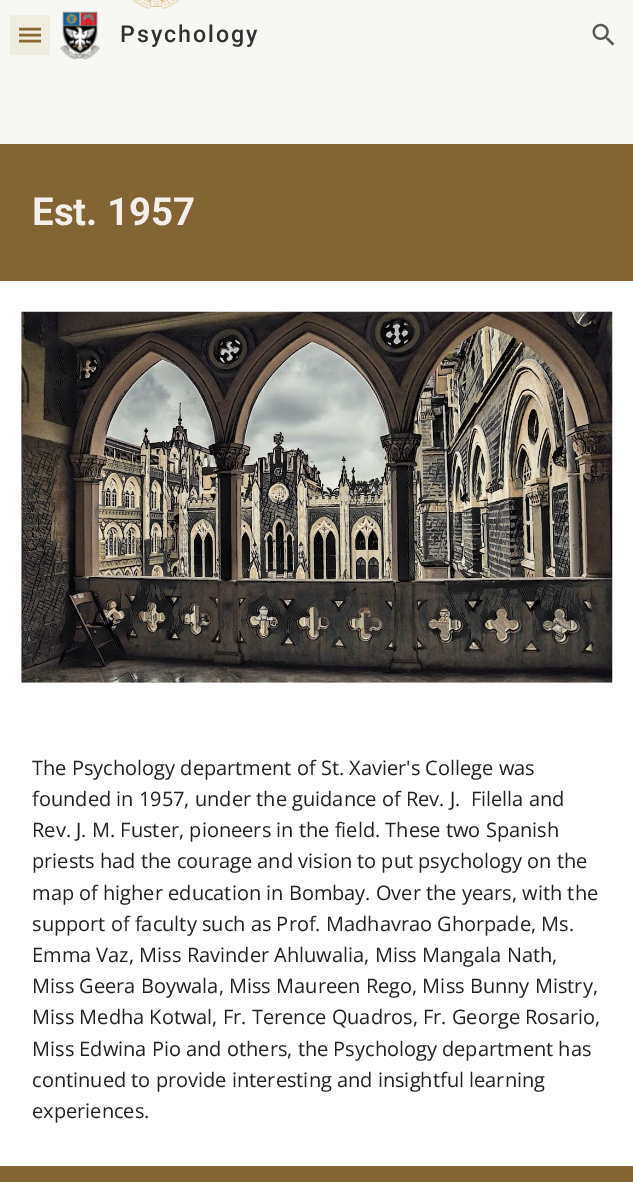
%!PS-Adobe-3.0
%%BoundingBox: 0 0 633 1182
%%LanguageLevel: 3
%%Pages: 1
%%EndComments
%%BeginProlog
/setink { dup -16 bitshift 255 div exch dup -8 bitshift 255 and 255 div exch 255 and 255 div setrgbcolor } def
/usefont { [ exch dup neg 0 0 3 -1 roll 0 0 ] selectfont } def
/setalpha { dup .setfillconstantalpha .setstrokeconstantalpha } def
/drawimage { 5 dict begin { /h /w /y /x /name } { exch def } forall
  gsave x y translate w h scale
  w h 8 [w 0 0 h 0 0] name (r) file false 3 colorimage grestore end } def
%%EndProlog
%%BeginSetup
<< /PageSize [633 1182] /PageUsesTransparency true >> setpagedevice
%%EndSetup
%%Page: 1 1
0 .pushpdf14devicefilter
0 1182 translate 1 -1 scale
4 setmiterlimit
16#FFFFFF setink
0 0 633 1182 rectfill
(img3.raw) 0 0 633 144 drawimage
16#836433 setink
2.5 setlinewidth
19 29 moveto 41 29 lineto 19 35 moveto 41 35 lineto 19 41 moveto 41 41 lineto stroke
0.12 setalpha
16#B79951 setink
10 15 40 40 rectfill
1 setalpha
(img1.raw) 60 11 40 49 drawimage
/Roboto-Medium 23.25 usefont
16#313131 setink
120 42 moveto 1.9 0 (Psychology) ashow
(img2.raw) 592 23 23 23 drawimage
16#836433 setink
0 144 633 137 rectfill
/Roboto-Bold 38.5 usefont
16#F3EFEB setink
32 225 moveto (Est. 1957) show
(img4.raw) 21 311 592 372 drawimage
/OpenSans-Regular 20 usefont
16#212121 setink
[
    [(The Psychology department of St. Xavier's College was) 32 775]
    [(founded in 1957, under the guidance of Rev. J.  Filella and) 32 806]
    [(Rev. J. M. Fuster, pioneers in the field. These two Spanish) 32 837]
    [(priests had the courage and vision to put psychology on the) 32 868]
    [(map of higher education in Bombay. Over the years, with the) 32 900]
    [(support of faculty such as Prof. Madhavrao Ghorpade, Ms.) 32 931]
    [(Emma Vaz, Miss Ravinder Ahluwalia, Miss Mangala Nath,) 32 962]
    [(Miss Geera Boywala, Miss Maureen Rego, Miss Bunny Mistry,) 32 993]
    [(Miss Medha Kotwal, Fr. Terence Quadros, Fr. George Rosario,) 32 1024]
    [(Miss Edwina Pio and others, the Psychology department has) 32 1056]
    [(continued to provide interesting and insightful learning) 32 1087]
    [(experiences.) 32 1118]
] { aload pop moveto show } forall
16#836433 setink
0 1166 633 16 rectfill
.poppdf14devicefilter showpage
%%EOF
